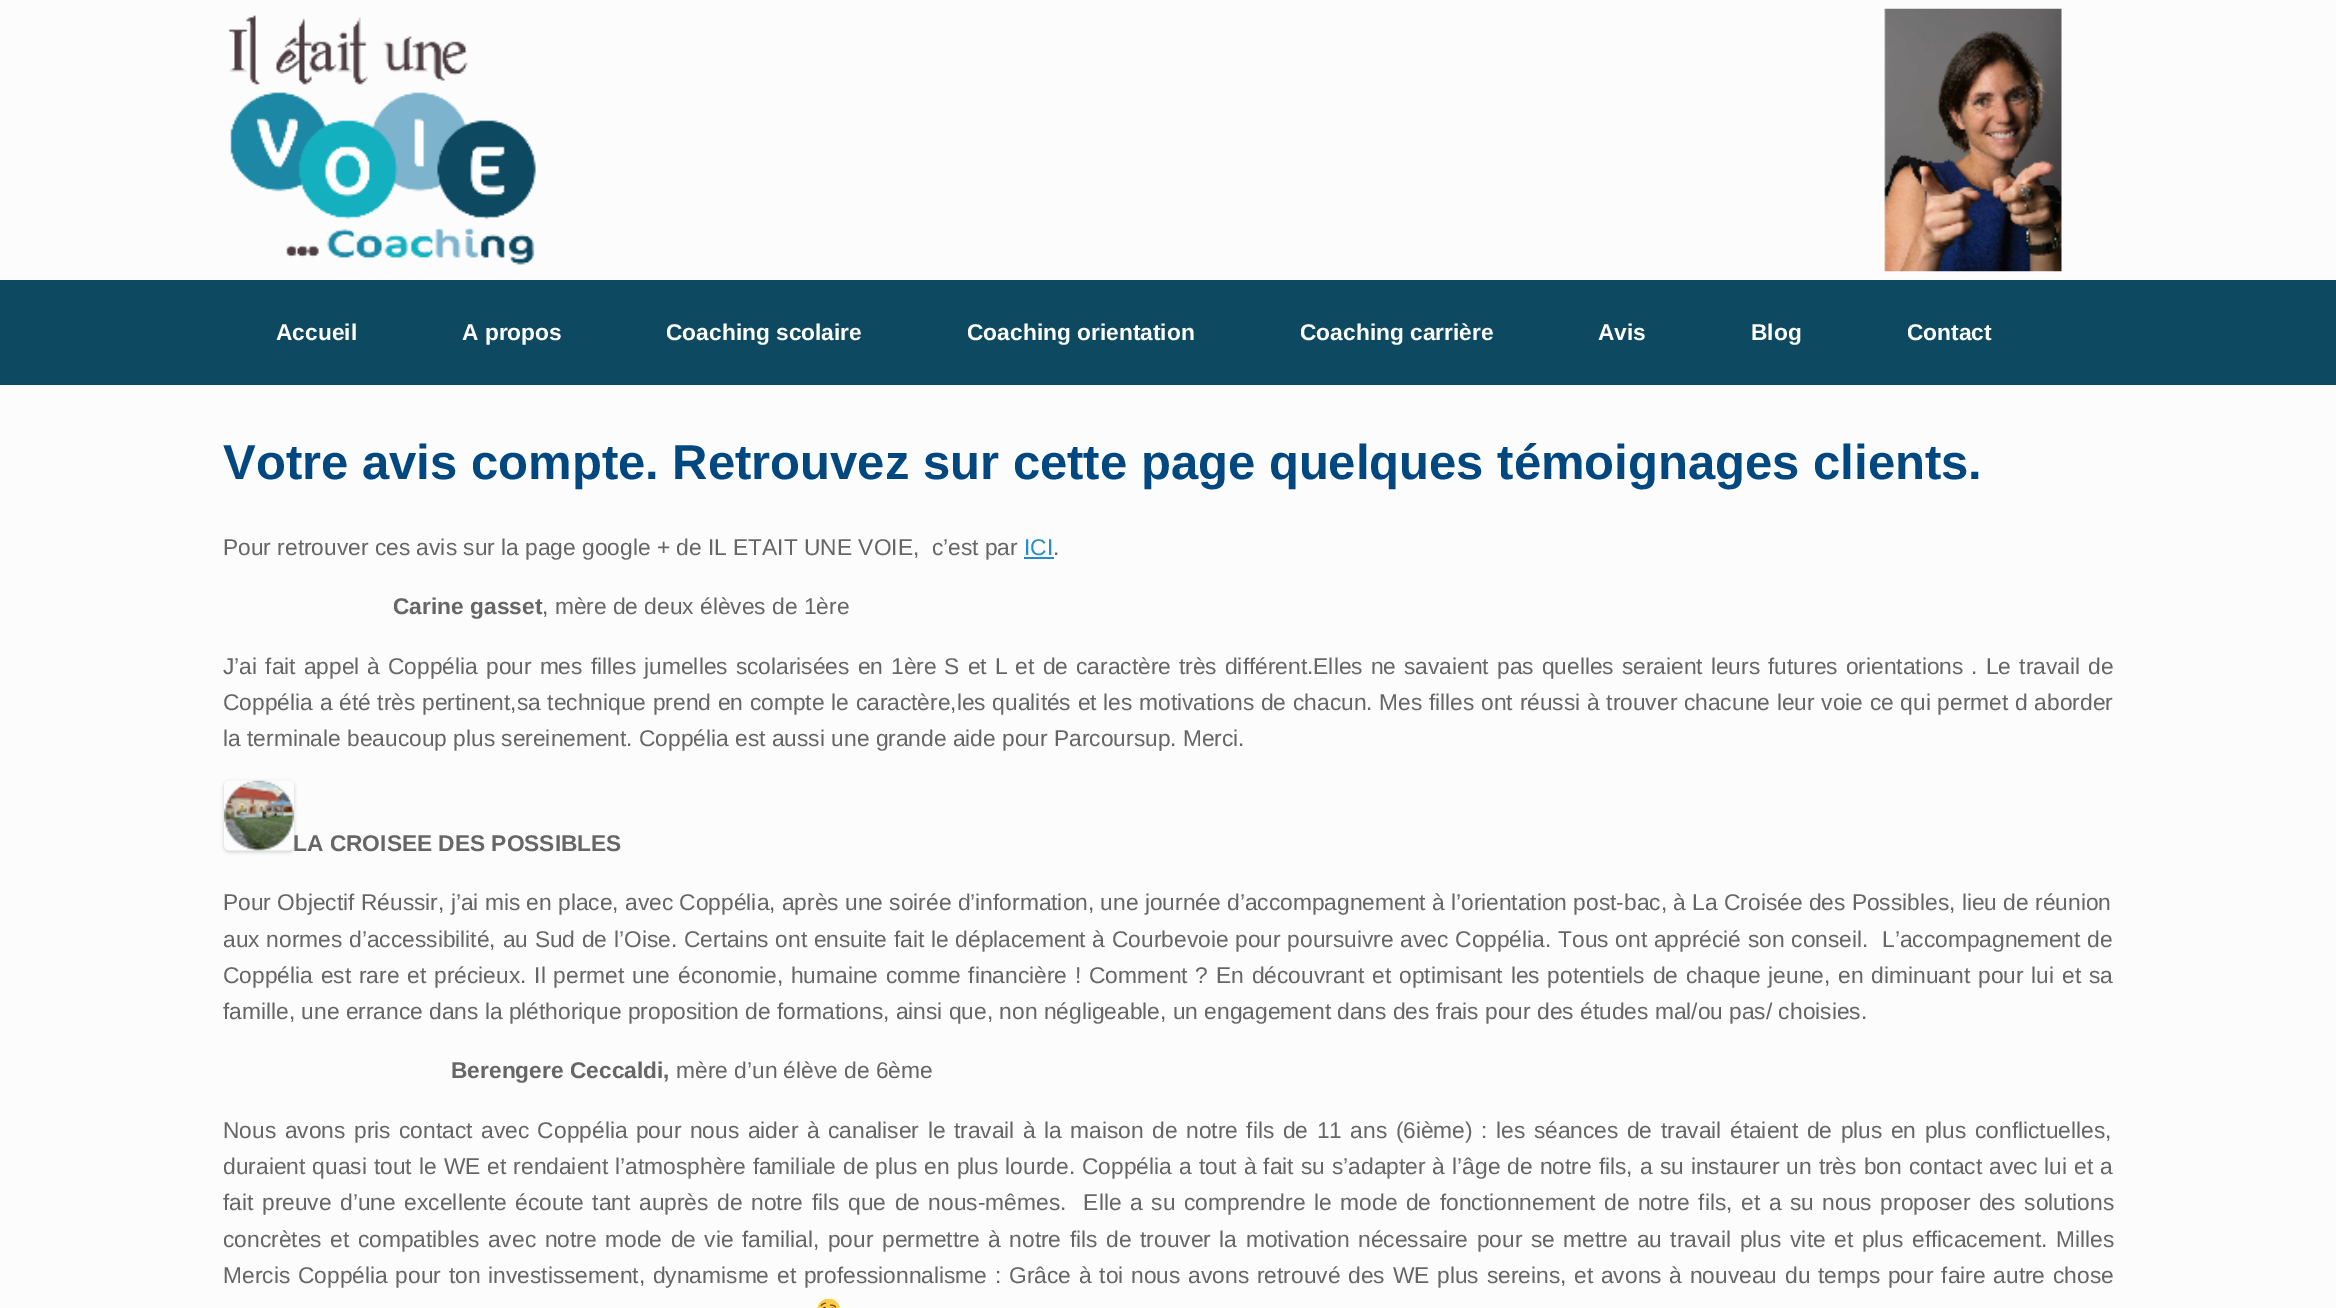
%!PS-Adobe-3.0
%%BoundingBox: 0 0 2336 1308
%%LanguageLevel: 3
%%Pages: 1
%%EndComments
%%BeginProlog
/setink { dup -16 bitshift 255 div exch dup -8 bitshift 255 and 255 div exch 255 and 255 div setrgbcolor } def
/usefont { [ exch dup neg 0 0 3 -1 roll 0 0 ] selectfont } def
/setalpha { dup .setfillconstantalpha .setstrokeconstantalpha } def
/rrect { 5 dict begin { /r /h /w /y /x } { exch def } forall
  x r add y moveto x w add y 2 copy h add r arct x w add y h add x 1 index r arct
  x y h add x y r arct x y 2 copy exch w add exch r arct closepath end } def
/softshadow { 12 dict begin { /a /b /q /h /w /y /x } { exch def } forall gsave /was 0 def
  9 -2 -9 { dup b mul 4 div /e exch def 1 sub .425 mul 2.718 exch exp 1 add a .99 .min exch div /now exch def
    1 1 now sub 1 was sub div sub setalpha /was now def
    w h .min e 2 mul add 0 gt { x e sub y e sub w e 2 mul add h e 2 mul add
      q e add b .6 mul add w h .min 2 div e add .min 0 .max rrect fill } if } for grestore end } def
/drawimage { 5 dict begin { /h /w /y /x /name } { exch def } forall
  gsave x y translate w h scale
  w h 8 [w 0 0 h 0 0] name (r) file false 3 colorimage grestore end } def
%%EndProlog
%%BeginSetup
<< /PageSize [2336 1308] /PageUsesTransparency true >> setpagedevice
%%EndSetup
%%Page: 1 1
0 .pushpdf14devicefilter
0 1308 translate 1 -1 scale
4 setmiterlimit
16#FCFCFC setink
0 0 2336 1308 rectfill
(img1.raw) 228 8 1834 264 drawimage
16#0D4961 setink
0 280 2336 105 rectfill
/LiberationSans-Bold 22.75 usefont
16#FFFFFF setink
[
    [(Accueil) 276 340]
    [(A propos) 462 340]
    [(Coaching scolaire) 666 340]
    [(Coaching orientation) 967 340]
    [(Coaching carrière) 1300 340]
    [(Avis) 1598 340]
    [(Blog) 1751 340]
    [(Contact) 1907 340]
] { aload pop moveto show } forall
/LiberationSans-Bold 49 usefont
16#014880 setink
223 479 moveto (Votre avis compte. Retrouvez sur cette page quelques témoignages clients.) show
/LiberationSans-Regular 22.75 usefont
16#666666 setink
223 555 moveto (Pour retrouver ces avis sur la page google + de IL ETAIT UNE VOIE,  c’est par) show
16#248CC8 setink
1024 555 moveto (ICI) show
1024 557 30 2 rectfill
16#666666 setink
1053 555 moveto (.) show
/LiberationSans-Bold 22.75 usefont
393 614 moveto (Carine gasset) show
/LiberationSans-Regular 22.75 usefont
542 614 moveto (, mère de deux élèves de 1ère) show
223 674 moveto 1.75 0 32 (J’ai fait appel à Coppélia pour mes filles jumelles scolarisées en 1ère S et L et de caractère très différent.Elles ne savaient pas quelles seraient leurs futures orientations . Le travail de) widthshow
223 710 moveto 0.4 0 32 (Coppélia a été très pertinent,sa technique prend en compte le caractère,les qualités et les motivations de chacun. Mes filles ont réussi à trouver chacune leur voie ce qui permet d aborder) widthshow
223 746 moveto (la terminale beaucoup plus sereinement. Coppélia est aussi une grande aide pour Parcoursup. Merci.) show
gsave
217 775 moveto 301 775 lineto 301 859 lineto 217 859 lineto closepath 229 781 moveto 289 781 lineto 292 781 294 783 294 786 curveto 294 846 lineto 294 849 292 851 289 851 curveto 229 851 lineto 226 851 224 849 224 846 curveto 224 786 lineto 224 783 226 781 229 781 curveto closepath eoclip newpath
16#000000 setink
224 782 70 70 5 2 0.18 softshadow
grestore
(img2.raw) 224 780 70 71 drawimage
/LiberationSans-Bold 22.75 usefont
293 851 moveto (LA CROISEE DES POSSIBLES) show
/LiberationSans-Regular 22.75 usefont
223 910 moveto (Pour Objectif Réussir, j’ai mis en place, avec Coppélia, après une soirée d’information, une journée d’accompagnement à l’orientation post-bac, à La Croisée des Possibles, lieu de réunion) show
223 947 moveto 0.45 0 32 (aux normes d’accessibilité, au Sud de l’Oise. Certains ont ensuite fait le déplacement à Courbevoie pour poursuivre avec Coppélia. Tous ont apprécié son conseil.  L’accompagnement de) widthshow
223 983 moveto 1.55 0 32 (Coppélia est rare et précieux. Il permet une économie, humaine comme financière ! Comment ? En découvrant et optimisant les potentiels de chaque jeune, en diminuant pour lui et sa) widthshow
223 1019 moveto (famille, une errance dans la pléthorique proposition de formations, ainsi que, non négligeable, un engagement dans des frais pour des études mal/ou pas/ choisies.) show
/LiberationSans-Bold 22.75 usefont
451 1078 moveto (Berengere Ceccaldi,) show
/LiberationSans-Regular 22.75 usefont
676 1078 moveto (mère d’un élève de 6ème) show
223 1138 moveto 2.2 0 32 (Nous avons pris contact avec Coppélia pour nous aider à canaliser le travail à la maison de notre fils de 11 ans \(6ième\) : les séances de travail étaient de plus en plus conflictuelles,) widthshow
223 1174 moveto 0.75 0 32 (duraient quasi tout le WE et rendaient l’atmosphère familiale de plus en plus lourde. Coppélia a tout à fait su s’adapter à l’âge de notre fils, a su instaurer un très bon contact avec lui et a) widthshow
223 1210 moveto 2.3 0 32 (fait preuve d’une excellente écoute tant auprès de notre fils que de nous-mêmes.  Elle a su comprendre le mode de fonctionnement de notre fils, et a su nous proposer des solutions) widthshow
223 1247 moveto 2.3 0 32 (concrètes et compatibles avec notre mode de vie familial, pour permettre à notre fils de trouver la motivation nécessaire pour se mettre au travail plus vite et plus efficacement. Milles) widthshow
223 1283 moveto 1.5 0 32 (Mercis Coppélia pour ton investissement, dynamisme et professionnalisme : Grâce à toi nous avons retrouvé des WE plus sereins, et avons à nouveau du temps pour faire autre chose) widthshow
(img3.raw) 817 1299 23 9 drawimage
.poppdf14devicefilter showpage
%%EOF
